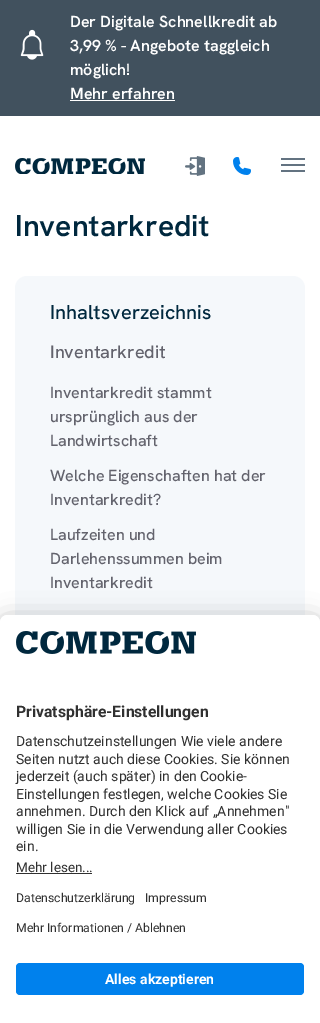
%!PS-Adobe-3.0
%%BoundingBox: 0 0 320 1023
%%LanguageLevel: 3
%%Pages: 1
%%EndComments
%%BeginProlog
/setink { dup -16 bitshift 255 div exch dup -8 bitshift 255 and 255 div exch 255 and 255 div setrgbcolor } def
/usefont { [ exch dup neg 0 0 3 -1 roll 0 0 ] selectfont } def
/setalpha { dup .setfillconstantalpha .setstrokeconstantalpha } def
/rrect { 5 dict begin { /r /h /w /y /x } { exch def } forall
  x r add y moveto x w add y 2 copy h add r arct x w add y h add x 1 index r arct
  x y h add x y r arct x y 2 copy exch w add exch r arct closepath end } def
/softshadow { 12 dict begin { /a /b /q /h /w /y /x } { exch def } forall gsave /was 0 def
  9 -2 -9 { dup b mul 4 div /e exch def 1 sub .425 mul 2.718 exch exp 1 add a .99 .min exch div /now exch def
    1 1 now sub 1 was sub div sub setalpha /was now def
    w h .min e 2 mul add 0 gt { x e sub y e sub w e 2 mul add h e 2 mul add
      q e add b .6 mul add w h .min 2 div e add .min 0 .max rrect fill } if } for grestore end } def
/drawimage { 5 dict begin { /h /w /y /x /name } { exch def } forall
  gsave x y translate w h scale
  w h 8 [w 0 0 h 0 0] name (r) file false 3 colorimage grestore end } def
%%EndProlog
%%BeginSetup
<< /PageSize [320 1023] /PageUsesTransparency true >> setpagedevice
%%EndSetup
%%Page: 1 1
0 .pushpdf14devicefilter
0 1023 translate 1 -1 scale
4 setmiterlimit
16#FFFFFF setink
0 0 320 1023 rectfill
16#41515E setink
0 0 320 116 rectfill
(img1.raw) 20 29 24 31 drawimage
/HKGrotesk-SemiBold 16 usefont
16#FFFFFF setink
[
    [(Der Digitale Schnellkredit ab) 70 27]
    [(3,99 % - Angebote taggleich) 70 51]
    [(möglich!) 70 75]
    [(Mehr erfahren) 70 99]
] { aload pop moveto show } forall
70 100 105 1 rectfill
(img2.raw) 15 158 130 16 drawimage
(img3.raw) 185 156 20 20 drawimage
(img4.raw) 233 157 18 18 drawimage
[
    [281 164 24 2 16#637381]
    [281 158 24 2 16#637381]
    [281 170 24 2 16#637381]
] { aload pop setink rectfill } forall
/HKGrotesk-SemiBold 30 usefont
16#00283E setink
15 236 moveto (Inventarkredit) show
16#F5F8FB setink
15 276 290 355 12 rrect fill
/HKGrotesk-Medium 20 usefont
16#00283E setink
50 319 moveto (Inhaltsverzeichnis) show
/HKGrotesk-Medium 18 usefont
16#63636D setink
50 358 moveto (Inventarkredit) show
/HKGrotesk-Medium 16 usefont
[
    [(Inventarkredit stammt) 50 398]
    [(ursprünglich aus der) 50 422]
    [(Landwirtschaft) 50 446]
    [(Welche Eigenschaften hat der) 50 481]
    [(Inventarkredit?) 50 505]
    [(Laufzeiten und) 50 540]
    [(Darlehenssummen beim) 50 564]
    [(Inventarkredit) 50 588]
] { aload pop moveto show } forall
16#000000 setink
0 635 320 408 8 14 0.3 softshadow
0 620 320 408 8 13 0.22 softshadow
16#FFFFFF setink
8 615 moveto 312 615 lineto 316.5 615 320 618.5 320 623 curveto 320 1023 lineto 0 1023 lineto 0 623 lineto 0 618.5 3.5 615 8 615 curveto closepath fill
8 615 moveto 312 615 lineto 316.5 615 320 618.5 320 623 curveto 320 951 lineto 0 951 lineto 0 623 lineto 0 618.5 3.5 615 8 615 curveto closepath fill
(img5.raw) 16 631 180 23 drawimage
/Roboto-Bold 15.75 usefont
16#303030 setink
16 717 moveto (Privatsphäre-Einstellungen) show
/Roboto-Regular 14 usefont
[
    [(Datenschutzeinstellungen Wie viele andere) 16 746]
    [(Seiten nutzt auch diese Cookies. Sie können) 16 764]
    [(jederzeit \(auch später\) in den Cookie-) 16 781]
    [(Einstellungen festlegen, welche Cookies Sie) 16 799]
    [(annehmen. Durch den Klick auf „Annehmen") 16 816]
    [(willigen Sie in die Verwendung aller Cookies) 16 834]
    [(ein.) 16 851]
] { aload pop moveto show } forall
/Roboto-Regular 13.5 usefont
16 872 moveto (Mehr lesen...) show
16 873 76 1 rectfill
/Roboto-Regular 12.25 usefont
[
    [(Datenschutzerklärung) 16 902]
    [(Impressum) 145 902]
    [(Mehr Informationen / Ablehnen) 16 932]
] { aload pop moveto show } forall
16#0081ED setink
16 963 288 32 4 rrect fill
/Roboto-Bold 14 usefont
16#FFFFFF setink
105 984 moveto (Alles akzeptieren) show
.poppdf14devicefilter showpage
%%EOF
